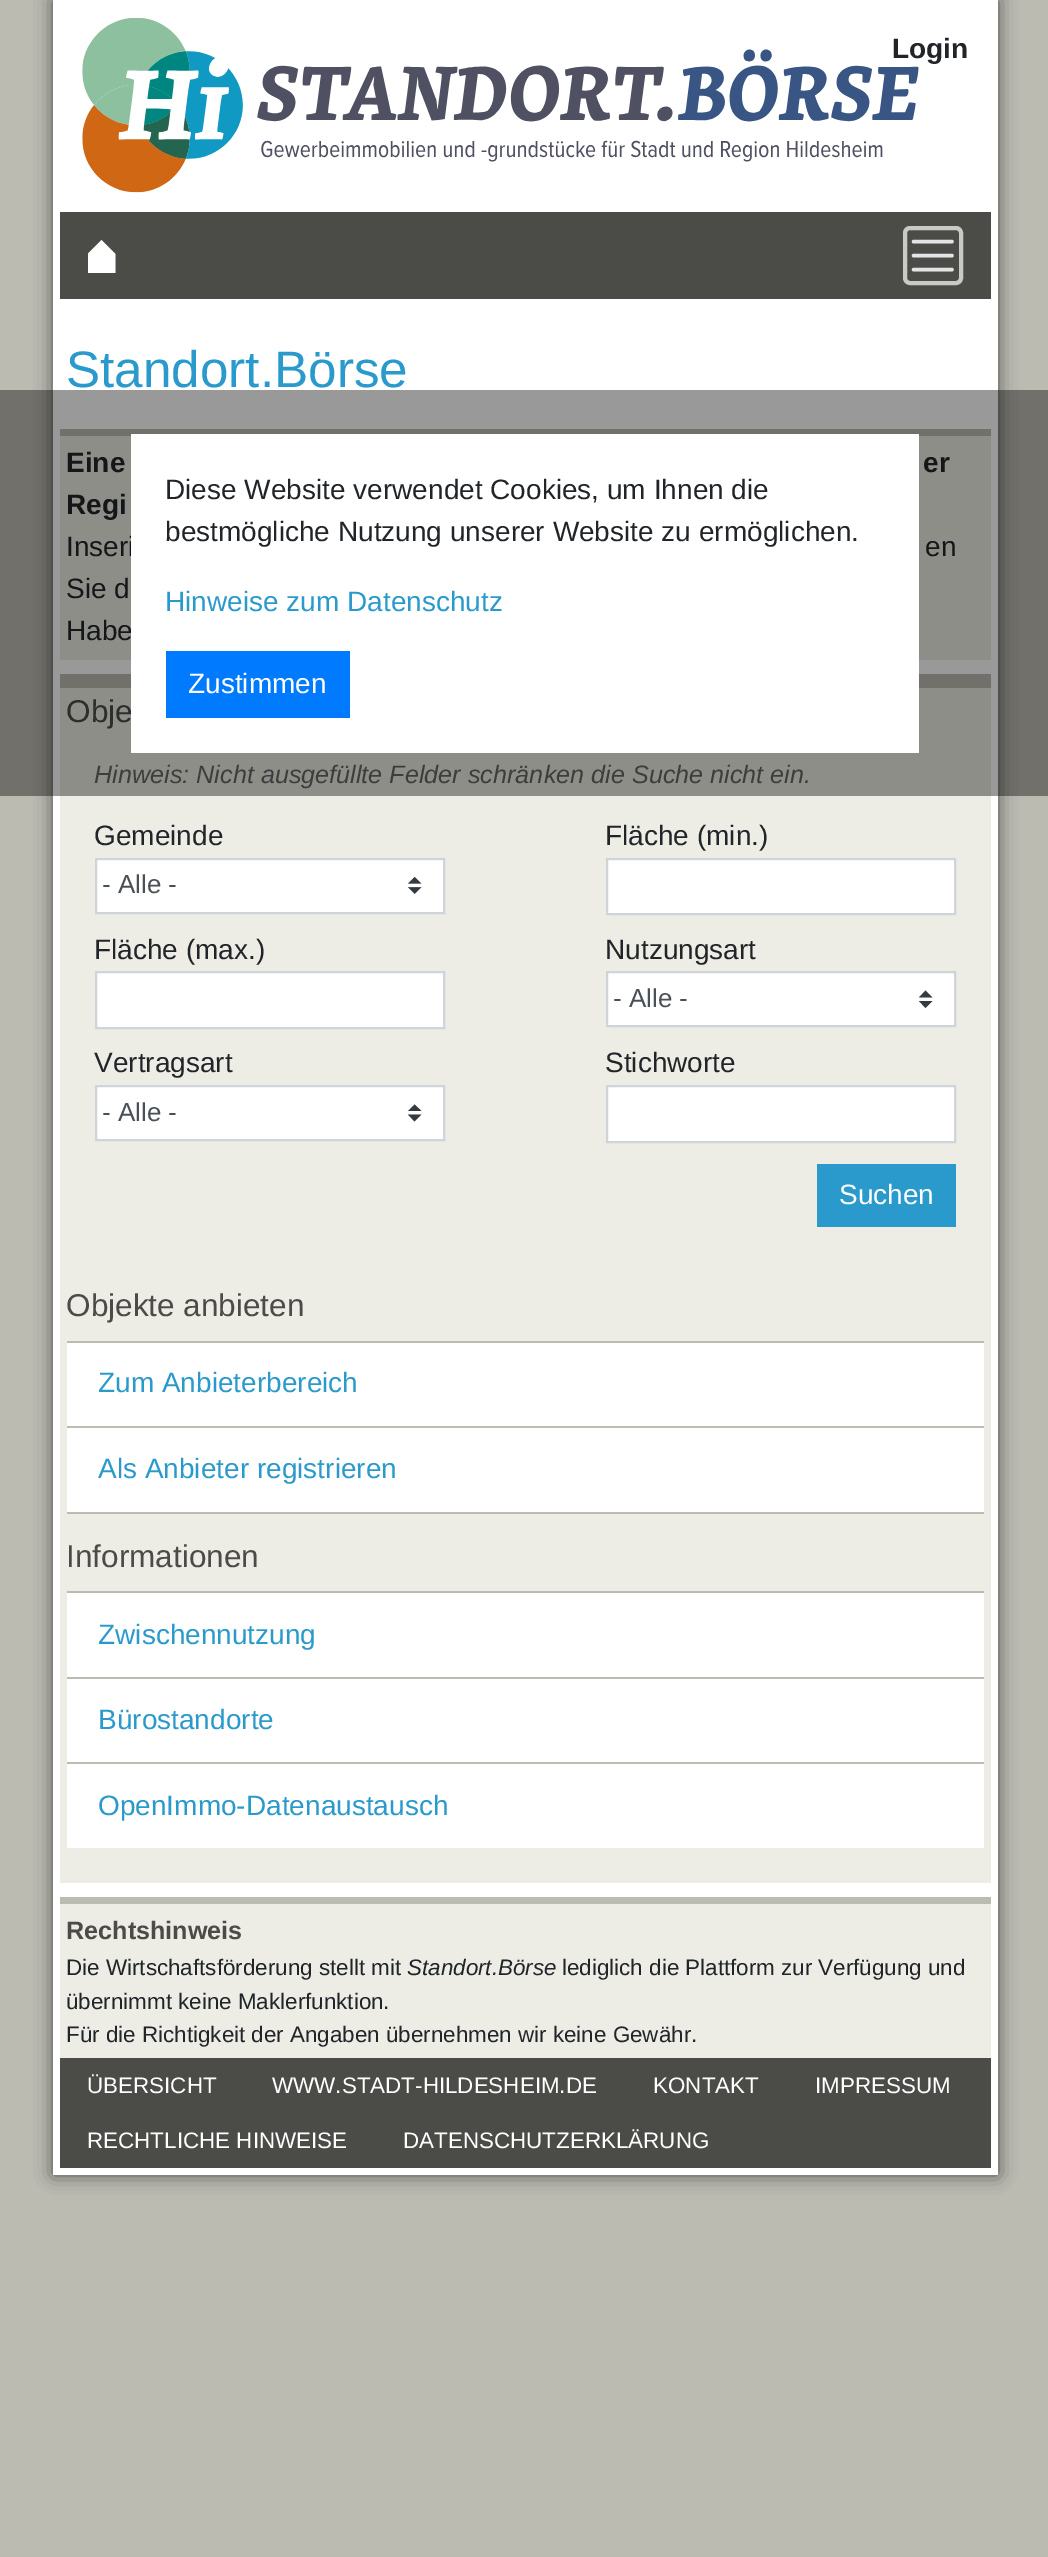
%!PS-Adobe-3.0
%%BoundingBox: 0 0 1048 2557
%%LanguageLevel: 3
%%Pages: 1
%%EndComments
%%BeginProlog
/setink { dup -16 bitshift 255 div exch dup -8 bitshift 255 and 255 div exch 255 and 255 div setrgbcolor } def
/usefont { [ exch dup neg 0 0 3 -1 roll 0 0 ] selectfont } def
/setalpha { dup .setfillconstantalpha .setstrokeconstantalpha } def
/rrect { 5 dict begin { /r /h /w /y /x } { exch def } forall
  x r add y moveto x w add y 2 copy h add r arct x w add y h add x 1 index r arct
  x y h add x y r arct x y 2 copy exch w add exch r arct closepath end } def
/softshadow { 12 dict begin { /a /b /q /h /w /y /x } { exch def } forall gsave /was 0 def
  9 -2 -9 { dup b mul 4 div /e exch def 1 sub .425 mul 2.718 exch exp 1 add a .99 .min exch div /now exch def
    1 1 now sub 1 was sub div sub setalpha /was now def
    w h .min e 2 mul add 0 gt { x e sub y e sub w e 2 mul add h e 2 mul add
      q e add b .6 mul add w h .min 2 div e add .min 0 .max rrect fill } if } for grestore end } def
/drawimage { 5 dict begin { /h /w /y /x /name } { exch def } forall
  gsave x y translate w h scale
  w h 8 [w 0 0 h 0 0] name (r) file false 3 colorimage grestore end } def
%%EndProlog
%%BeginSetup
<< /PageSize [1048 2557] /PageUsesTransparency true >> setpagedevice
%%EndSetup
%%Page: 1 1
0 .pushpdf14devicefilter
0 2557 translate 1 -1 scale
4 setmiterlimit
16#BCBBB2 setink
0 0 1048 2557 rectfill
16#4B4B48 setink
53 0 945 2175 0 9 1 softshadow
16#FFFFFF setink
53 0 945 2175 rectfill
(img1.raw) 82 18 837 175 drawimage
/LiberationSans-Bold 28 usefont
16#212529 setink
892 58 moveto (Login) show
16#4B4B48 setink
60 212 931 87 rectfill
gsave
88 240 28 33 rectclip
16#FFFFFF setink
101.5 240 moveto 87.5 254 lineto 87.5 273 lineto 115.5 273 lineto 115.5 254 lineto closepath fill
grestore
16#C9C9C8 setink
4 setlinewidth
905 228 56 55 5 rrect stroke
16#E4E4E4 setink
3.5 setlinewidth
1 setlinecap
913.5 241.5 moveto 952 241.5 lineto 913.5 255.5 moveto 952 255.5 lineto 913.5 269.5 moveto 952 269.5 lineto stroke
/LiberationSans-Regular 51.25 usefont
16#2A99CB setink
66 387 moveto (Standort.Börse) show
16#EDECE5 setink
60 436 931 224 rectfill
16#BCBBB2 setink
60 429 931 7 rectfill
/LiberationSans-Bold 28 usefont
16#212529 setink
[
    [(Eine) 66 472]
    [(er) 923 472]
    [(Regi) 66 514]
] { aload pop moveto show } forall
/LiberationSans-Regular 28 usefont
[
    [(Inseri) 66 556]
    [(en) 925 556]
    [(Sie d) 66 598]
    [(Habe) 66 640]
] { aload pop moveto show } forall
16#EDECE5 setink
60 688 931 1195 rectfill
16#BCBBB2 setink
60 674 931 14 rectfill
/LiberationSans-Regular 31.5 usefont
16#4B4B48 setink
66 722 moveto (Obje) show
/LiberationSans-Italic 25.2 usefont
16#666666 setink
94 783 moveto (Hinweis: Nicht ausgefüllte Felder schränken die Suche nicht ein.) show
/LiberationSans-Regular 28 usefont
16#212529 setink
94 845 moveto (Gemeinde) show
16#FFFFFF setink
97 860 346 52 rectfill
(img2.raw) 408 877 14 17 drawimage
16#CED4DA setink
2 setlinewidth
0 setlinecap
96 859 348 54 rectstroke
/LiberationSans-Regular 26 usefont
16#495057 setink
102 893 moveto (- Alle -) show
/LiberationSans-Regular 28 usefont
16#212529 setink
605 845 moveto (Fläche \(min.\)) show
16#FFFFFF setink
607 859 moveto 955 859 lineto 955 914 lineto 607 914 lineto closepath gsave fill grestore
16#CED4DA setink
stroke
16#212529 setink
94 959 moveto (Fläche \(max.\)) show
16#FFFFFF setink
96 972 moveto 444 972 lineto 444 1028 lineto 96 1028 lineto closepath gsave fill grestore
16#CED4DA setink
stroke
16#212529 setink
605 959 moveto (Nutzungsart) show
16#FFFFFF setink
608 973 346 52 rectfill
16#343A40 setink
925.5 990.5 moveto 919 997.5 lineto 932.5 997.5 lineto closepath 925.5 1008 moveto 919 1001 lineto 932.5 1001 lineto closepath fill
16#CED4DA setink
607 972 348 54 rectstroke
/LiberationSans-Regular 26 usefont
16#495057 setink
613 1007 moveto (- Alle -) show
/LiberationSans-Regular 28 usefont
16#212529 setink
94 1072 moveto (Vertragsart) show
16#FFFFFF setink
97 1087 346 52 rectfill
16#343A40 setink
414.5 1104.5 moveto 408 1111 lineto 421.5 1111 lineto closepath 414.5 1121.5 moveto 408 1114.5 lineto 421.5 1114.5 lineto closepath fill
16#CED4DA setink
96 1086 348 54 rectstroke
/LiberationSans-Regular 26 usefont
16#495057 setink
102 1121 moveto (- Alle -) show
/LiberationSans-Regular 28 usefont
16#212529 setink
605 1072 moveto (Stichworte) show
16#FFFFFF setink
607 1086 moveto 955 1086 lineto 955 1142 lineto 607 1142 lineto closepath gsave fill grestore
16#CED4DA setink
stroke
16#2A99CB setink
817 1164 139 63 rectfill
16#FFFFFF setink
839 1204 moveto (Suchen) show
/LiberationSans-Regular 31.5 usefont
16#4B4B48 setink
66 1316 moveto (Objekte anbieten) show
16#FFFFFF setink
67 1343 917 83 rectfill
16#BCBBB2 setink
67 1341 917 2 rectfill
/LiberationSans-Regular 28 usefont
16#2A99CB setink
98 1392 moveto (Zum Anbieterbereich) show
[
    [67 1428 917 84 16#FFFFFF]
    [67 1426 917 2 16#BCBBB2]
    [67 1512 917 2 16#BCBBB2]
] { aload pop setink rectfill } forall
16#2A99CB setink
98 1478 moveto (Als Anbieter registrieren) show
/LiberationSans-Regular 31.5 usefont
16#4B4B48 setink
66 1567 moveto (Informationen) show
16#FFFFFF setink
67 1593 917 84 rectfill
16#BCBBB2 setink
67 1591 917 2 rectfill
/LiberationSans-Regular 28 usefont
16#2A99CB setink
98 1644 moveto (Zwischennutzung) show
16#FFFFFF setink
67 1679 917 83 rectfill
16#BCBBB2 setink
67 1677 917 2 rectfill
16#2A99CB setink
98 1729 moveto (Bürostandorte) show
16#FFFFFF setink
67 1764 917 84 rectfill
16#BCBBB2 setink
67 1762 917 2 rectfill
16#2A99CB setink
98 1815 moveto (OpenImmo-Datenaustausch) show
16#EDECE5 setink
60 1904 931 154 rectfill
16#BCBBB2 setink
60 1897 931 7 rectfill
/LiberationSans-Bold 25.2 usefont
16#4B4B48 setink
66 1939 moveto (Rechtshinweis) show
/LiberationSans-Regular 22.4 usefont
16#212529 setink
66 1975 moveto (Die Wirtschaftsförderung stellt mit) show
/LiberationSans-Italic 22.4 usefont
407 1975 moveto (Standort.Börse) show
/LiberationSans-Regular 22.4 usefont
[
    [(lediglich die Plattform zur Verfügung und) 562 1975]
    [(übernimmt keine Maklerfunktion.) 66 2009]
    [(Für die Richtigkeit der Angaben übernehmen wir keine Gewähr.) 66 2042]
] { aload pop moveto show } forall
16#4B4B48 setink
60 2058 931 110 rectfill
16#FFFFFF setink
[
    [(ÜBERSICHT) 87 2093]
    [(WWW.STADT-HILDESHEIM.DE) 272 2093]
    [(KONTAKT) 653 2093]
    [(IMPRESSUM) 815 2093]
    [(RECHTLICHE HINWEISE) 87 2148]
    [(DATENSCHUTZERKLÄRUNG) 403 2148]
] { aload pop moveto show } forall
0.4 setalpha
16#000000 setink
0 390 1048 406 rectfill
1 setalpha
16#FFFFFF setink
131 434 788 319 rectfill
/LiberationSans-Regular 28 usefont
16#212529 setink
165 499 moveto (Diese Website verwendet Cookies, um Ihnen die) show
165 541 moveto (bestmögliche Nutzung unserer Website zu ermöglichen.) show
16#2A99CB setink
165 611 moveto (Hinweise zum Datenschutz) show
16#007BFF setink
166 651 184 67 rectfill
16#FFFFFF setink
188 693 moveto (Zustimmen) show
.poppdf14devicefilter showpage
%%EOF
